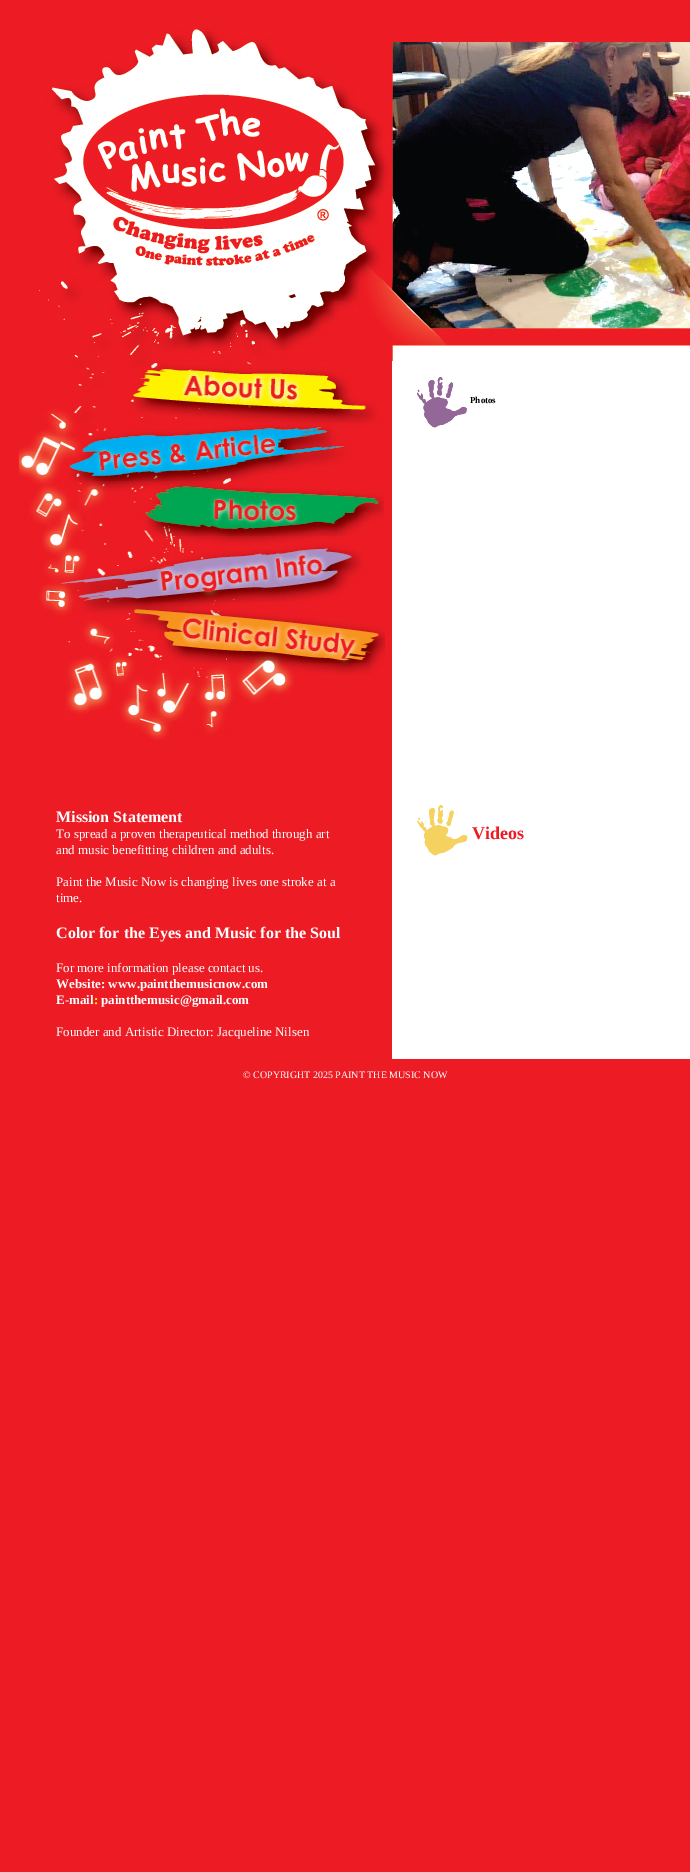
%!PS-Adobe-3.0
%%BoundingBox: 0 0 690 1872
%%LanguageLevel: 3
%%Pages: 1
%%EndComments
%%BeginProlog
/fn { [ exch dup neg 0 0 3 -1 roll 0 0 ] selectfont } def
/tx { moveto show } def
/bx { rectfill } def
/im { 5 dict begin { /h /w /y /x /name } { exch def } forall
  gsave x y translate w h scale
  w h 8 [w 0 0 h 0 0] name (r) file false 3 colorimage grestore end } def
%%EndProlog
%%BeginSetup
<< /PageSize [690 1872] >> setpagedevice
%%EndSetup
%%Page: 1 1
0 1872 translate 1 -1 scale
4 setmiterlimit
0.929 0.11 0.141 setrgbcolor
0 0 690 1872 bx
1 setgray
392 361 298 698 bx
(image0.raw) 39 8 651 353 im
(image1.raw) 417 377 50 51 im
/LiberationSerif-Bold 9 fn
0 setgray
(Photos) 470 403 tx
(image2.raw) 417 805 51 51 im
/LiberationSerif-Bold 18 fn
0.929 0.11 0.141 setrgbcolor
(Videos) 472 839 tx
(image3.raw) 18 361 367 379 im
/LiberationSerif-Bold 16 fn
1 setgray
(Mission Statement) 56 822 tx
/LiberationSerif-Regular 13 fn
(To spread a proven therapeutical method through art) 56 838 tx
(and music benefitting children and adults.) 56 854 tx
(Paint the Music Now is changing lives one stroke at a) 56 886 tx
(time.) 56 902 tx
/LiberationSerif-Bold 16 fn
(Color for the Eyes and Music for the Soul) 56 938 tx
/LiberationSerif-Regular 13 fn
(For more information please contact us.) 56 972 tx
/LiberationSerif-Bold 13 fn
(Website: www.paintthemusicnow.com) 56 988 tx
(E-mail) 56 1004 tx
1 1 0 setrgbcolor
(:) 94 1004 tx
1 setgray
(paintthemusic@gmail.com) 101 1004 tx
/LiberationSerif-Regular 13 fn
(Founder and Artistic Director: Jacqueline Nilsen) 56 1036 tx
/LiberationSerif-Regular 10 fn
(© COPYRIGHT 2025 PAINT THE MUSIC NOW) 243 1078 tx
showpage
%%EOF
